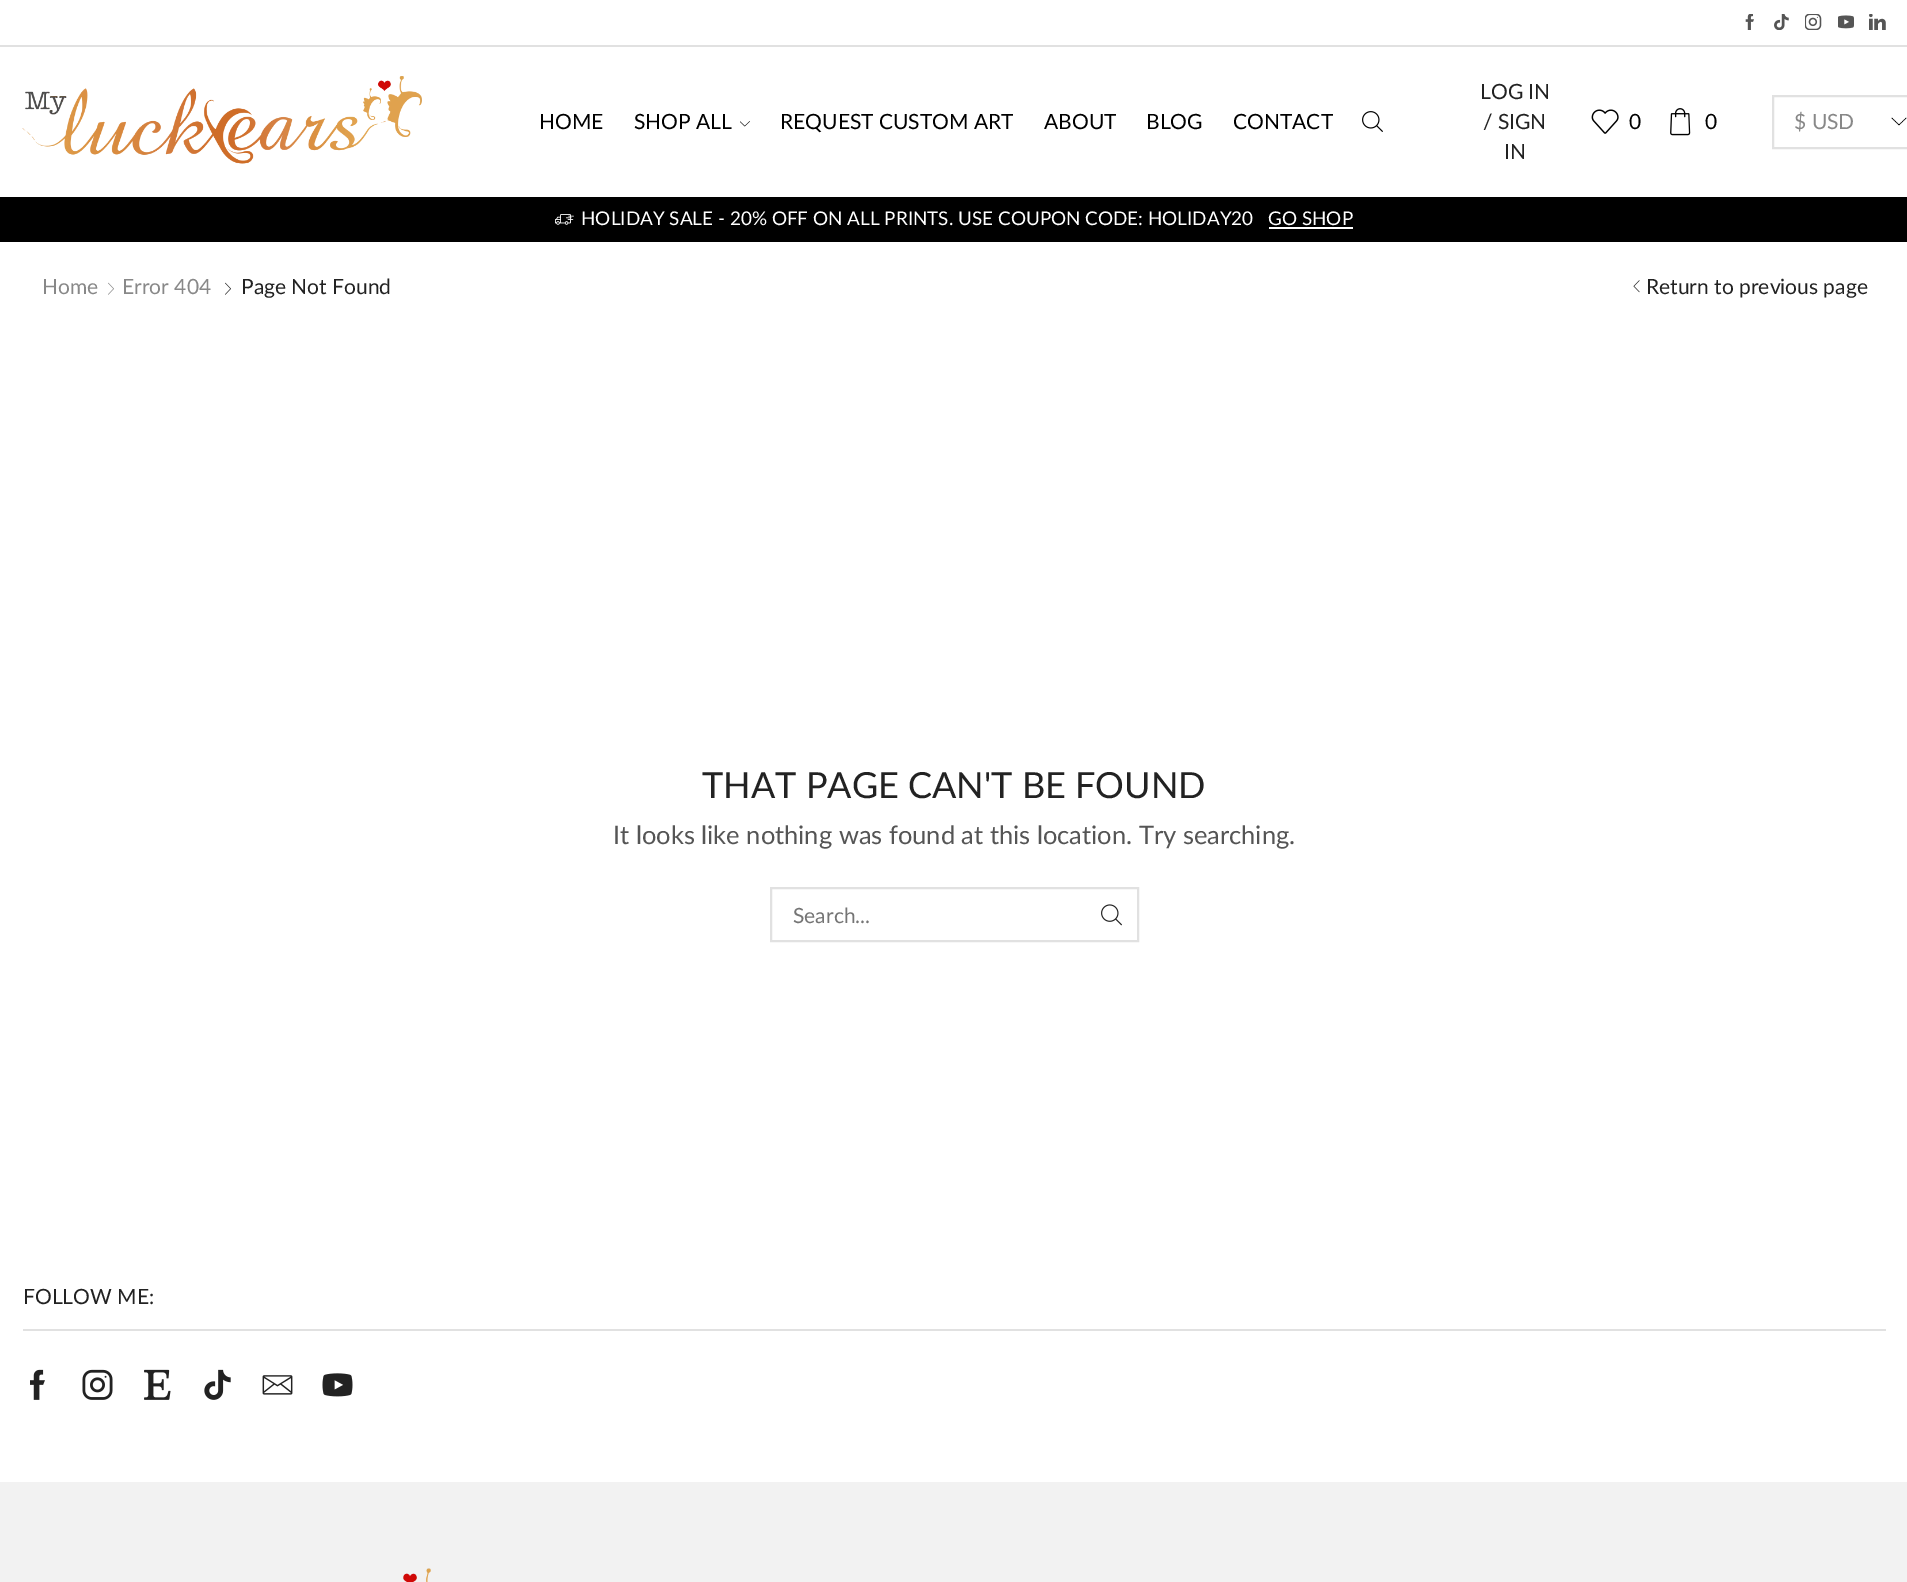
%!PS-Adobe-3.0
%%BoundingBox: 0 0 1907 1582
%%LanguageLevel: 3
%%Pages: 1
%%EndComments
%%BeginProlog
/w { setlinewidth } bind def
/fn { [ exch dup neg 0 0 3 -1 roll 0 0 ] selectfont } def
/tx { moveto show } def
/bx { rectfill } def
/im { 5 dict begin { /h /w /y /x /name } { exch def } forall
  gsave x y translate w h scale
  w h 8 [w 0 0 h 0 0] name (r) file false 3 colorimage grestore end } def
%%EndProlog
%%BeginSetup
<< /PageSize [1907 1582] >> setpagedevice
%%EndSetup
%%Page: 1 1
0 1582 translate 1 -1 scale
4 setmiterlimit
1 setgray
0 0 1907 1582 bx
0.882 setgray
0 45 1907 2 bx
(image0.raw) 1745 14 9 16 im
(image1.raw) 1774 14 15 16 im
(image2.raw) 1805 14 17 16 im
(image3.raw) 1838 15 16 14 im
(image4.raw) 1869 14 17 16 im
(image5.raw) 22 76 400 88 im
/Lato-Regular 21 fn
0 setgray
(HOME) 539 129 tx
(SHOP ALL) 634 129 tx
(image6.raw) 740 121 10 6 im
(REQUEST CUSTOM ART) 780 129 tx
(ABOUT) 1044 129 tx
(BLOG) 1146 129 tx
(CONTACT) 1233 129 tx
(image7.raw) 1362 111 21 21 im
0.133 setgray
(LOG IN) 1480 99 tx
(/ SIGN) 1483 129 tx
(IN) 1504 159 tx
(image8.raw) 1591 109 28 25 im
0 setgray
(0) 1629 129 tx
(image9.raw) 1670 108 21 28 im
(0) 1705 129 tx
(image10.raw) 1891 117 16 9 im
0.882 setgray
2 w
1773 96 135 52 rectstroke
0.533 setgray
($ USD) 1794 129 tx
0 setgray
0 197 1907 45 bx
(image11.raw) 555 214 19 11 im
/Lato-Regular 18.9 fn
1 setgray
(HOLIDAY SALE - 20% OFF ON ALL PRINTS. USE COUPON CODE: HOLIDAY20) 581 225 tx
(GO SHOP) 1268 225 tx
1269 227 84 2 bx
/Lato-Regular 21 fn
0.533 setgray
(Home) 42 294 tx
(image12.raw) 108 282 6 13 im
(Error 404) 122 294 tx
(image13.raw) 225 282 6 13 im
0.133 setgray
(Page Not Found) 241 294 tx
(image14.raw) 1633 280 7 13 im
(Return to previous page) 1646 294 tx
/Lato-Regular 36 fn
(THAT PAGE CAN'T BE FOUND) 702 798 tx
/Lato-Regular 25.5 fn
0.333 setgray
(It looks like nothing was found at this location. Try searching.) 613 844 tx
0.882 setgray
771 888 367 53 rectstroke
/Lato-Regular 21 fn
0.459 setgray
(Search...) 793 923 tx
(image15.raw) 1101 904 21 22 im
0.882 setgray
23 1329 1863 2 bx
0.133 setgray
(FOLLOW ME:) 23 1304 tx
(image16.raw) 30 1369 15 31 im
(image17.raw) 82 1369 31 31 im
(image18.raw) 144 1369 27 31 im
(image19.raw) 204 1369 27 31 im
(image20.raw) 262 1375 31 20 im
(image21.raw) 322 1373 31 24 im
0.949 setgray
0 1482 1907 100 bx
(image22.raw) 403 1568 28 14 im
showpage
%%EOF
